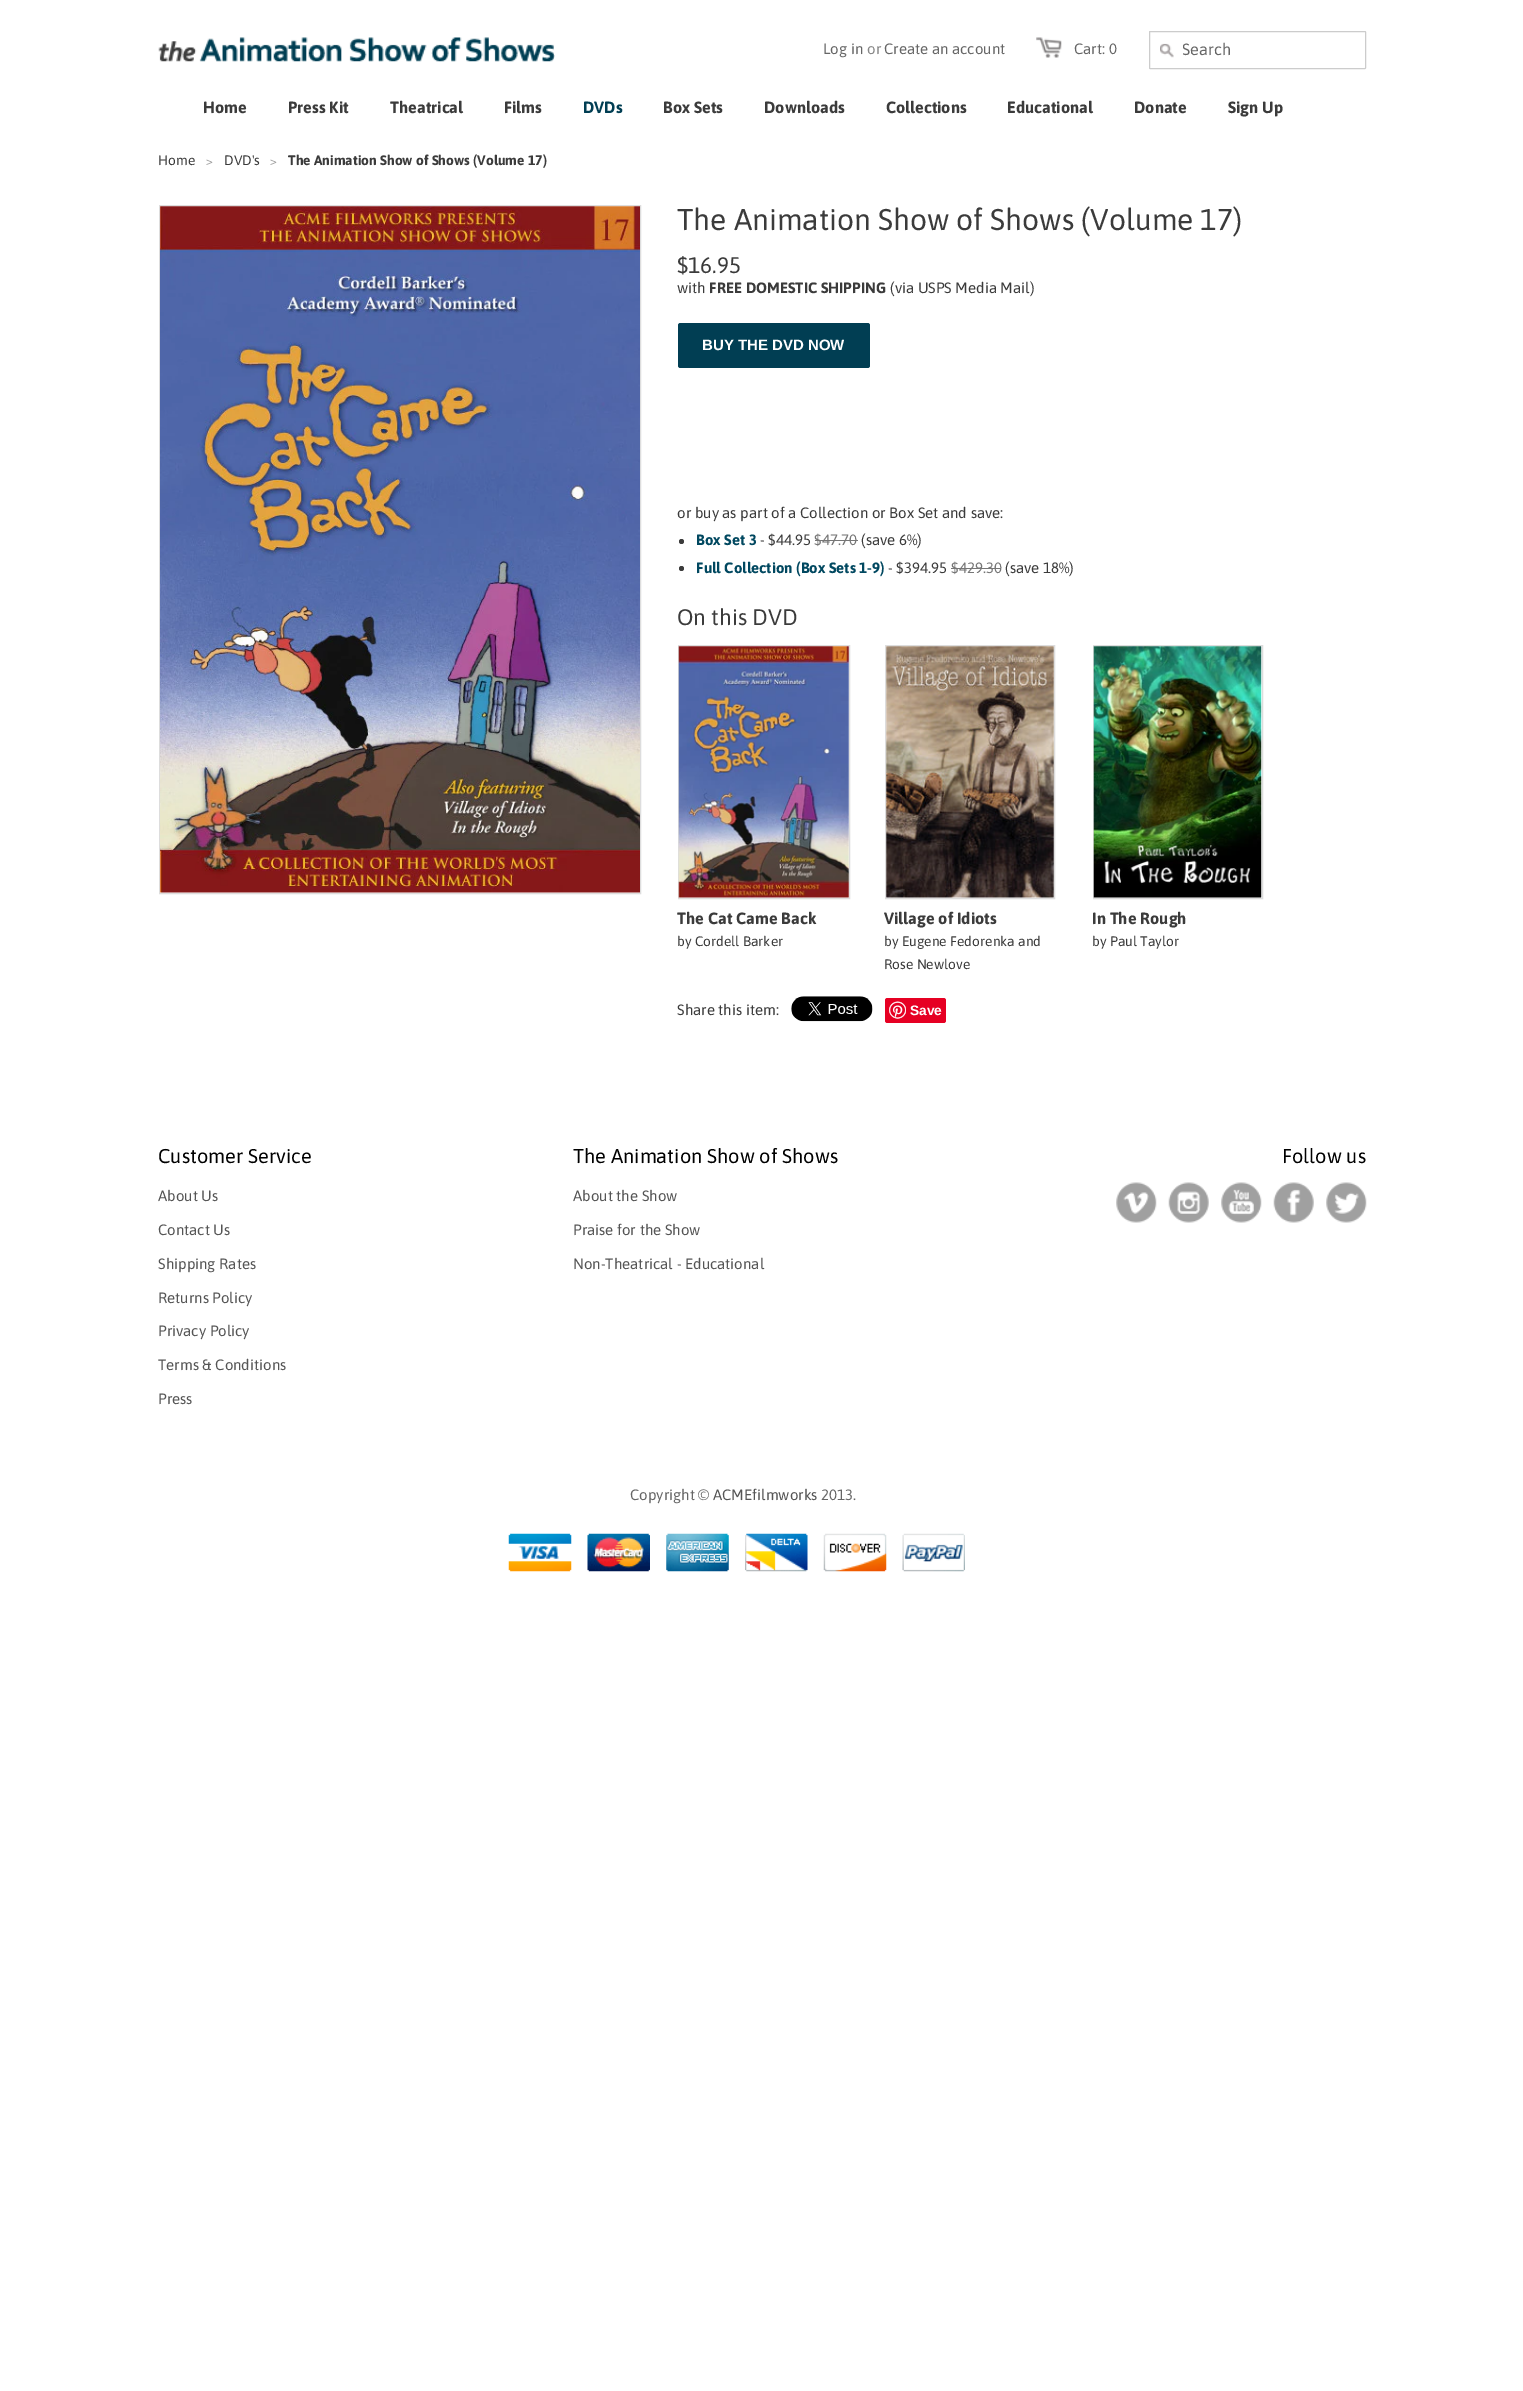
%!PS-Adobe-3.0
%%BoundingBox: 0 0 1523 2391
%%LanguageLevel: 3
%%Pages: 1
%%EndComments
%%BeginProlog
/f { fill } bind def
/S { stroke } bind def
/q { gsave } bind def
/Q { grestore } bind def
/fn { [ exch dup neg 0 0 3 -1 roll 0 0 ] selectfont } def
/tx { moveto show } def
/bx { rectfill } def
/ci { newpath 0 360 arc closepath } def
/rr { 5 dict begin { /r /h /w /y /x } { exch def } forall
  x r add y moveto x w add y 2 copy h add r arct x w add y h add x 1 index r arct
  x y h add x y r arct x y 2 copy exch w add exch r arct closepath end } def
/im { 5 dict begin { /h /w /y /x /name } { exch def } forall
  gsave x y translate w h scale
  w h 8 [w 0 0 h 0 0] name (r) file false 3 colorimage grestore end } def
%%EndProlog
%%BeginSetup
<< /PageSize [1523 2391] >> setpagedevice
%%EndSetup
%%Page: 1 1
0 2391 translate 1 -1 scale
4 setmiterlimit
1 setgray
0 0 1523 2391 bx
(image0.raw) 158 37 397 25 im
/Asap-Regular 15 fn
0.4 setgray
(Log in) 823 54 tx
0.533 setgray
(or) 867 54 tx
0.4 setgray
(Create an account) 884 54 tx
(image1.raw) 1036 37 26 21 im
(Cart: 0) 1074 54 tx
0.8 setgray
1149.5 31.5 216 37 0.5 rr S
(image2.raw) 1160 43 14 15 im
q
1183 40 170 19 rectclip
/Asap-Regular 16.25 fn
0.4 setgray
(Search) 1182 55 tx
Q
/Asap-Bold 16.25 fn
0.231 setgray
(Home) 203 113 tx
(Press Kit) 288 113 tx
(Theatrical) 390 113 tx
(Films) 504 113 tx
0.004 0.243 0.325 setrgbcolor
(DVDs) 583 113 tx
0.231 setgray
(Box Sets) 663 113 tx
(Downloads) 764 113 tx
(Collections) 886 113 tx
(Educational) 1007 113 tx
(Donate) 1134 113 tx
(Sign Up) 1228 113 tx
/Asap-Regular 13.75 fn
(Home) 158 165 tx
/Asap-Regular 12 fn
0.616 setgray
(>) 206 165 tx
/Asap-Regular 13.75 fn
0.231 setgray
(DVD's) 224 165 tx
/Asap-Regular 12 fn
0.616 setgray
(>) 270 165 tx
/Asap-Bold 13.75 fn
0.231 setgray
(The Animation Show of Shows \(Volume 17\)) 288 165 tx
0.867 setgray
159.5 205.5 481 688 rectstroke
(image3.raw) 160 206 480 687 im
/Asap-Regular 30 fn
0.231 setgray
(The Animation Show of Shows \(Volume 17\)) 677 230 tx
/Asap-Regular 22.5 fn
($16.95) 677 273 tx
/Asap-Regular 15 fn
(with) 677 293 tx
/Asap-Bold 15 fn
(FREE DOMESTIC SHIPPING) 709 293 tx
/Asap-Regular 15 fn
(\(via USPS Media Mail\)) 890 293 tx
0.004 0.243 0.325 setrgbcolor
678 323 192 45 2.5 rr f
/LiberationSans-Bold 15 fn
1 setgray
(BUY THE DVD NOW) 702 350 tx
/Asap-Regular 15 fn
0.231 setgray
(or buy as part of a Collection or Box Set and save:) 677 518 tx
681.5 541.5 2.5 ci f
/Asap-Bold 15 fn
0.004 0.282 0.376 setrgbcolor
(Box Set 3) 696 545 tx
/Asap-Regular 15 fn
0.231 setgray
(- $44.95) 760 545 tx
0.463 setgray
($47.70) 814 545 tx
815 540 43 1 bx
0.231 setgray
(\(save 6%\)) 861 545 tx
681.5 568.5 2.5 ci f
/Asap-Bold 15 fn
0.004 0.282 0.376 setrgbcolor
(Full Collection \(Box Sets 1-9\)) 696 573 tx
/Asap-Regular 15 fn
0.231 setgray
(- $394.95) 888 573 tx
0.463 setgray
($429.30) 951 573 tx
951 568 50 1 bx
0.231 setgray
(\(save 18%\)) 1005 573 tx
/Asap-Regular 22.5 fn
(On this DVD) 677 625 tx
0.867 setgray
678.5 645.5 171 253 rectstroke
(image4.raw) 678 646 171 252 im
/Asap-Bold 16.25 fn
0.231 setgray
(The Cat Came Back) 677 924 tx
/Asap-Regular 13.75 fn
(by Cordell Barker) 677 946 tx
0.867 setgray
885.5 645.5 169 253 rectstroke
(image5.raw) 886 646 168 252 im
/Asap-Bold 16.25 fn
0.231 setgray
(Village of Idiots) 884 924 tx
/Asap-Regular 13.75 fn
(by Eugene Fedorenka and) 884 946 tx
(Rose Newlove) 884 969 tx
0.867 setgray
1093.5 645.5 169 253 rectstroke
(image6.raw) 1093 646 169 252 im
/Asap-Bold 16.25 fn
0.231 setgray
(In The Rough) 1092 924 tx
/Asap-Regular 13.75 fn
(by Paul Taylor) 1092 946 tx
/Asap-Regular 15 fn
(Share this item:) 677 1015 tx
(image7.raw) 791 996 82 26 im
0.902 0 0.137 setrgbcolor
885 998 61 25 2.5 rr f
(image8.raw) 889 1001 17 18 im
/LiberationSans-Bold 13.75 fn
1 setgray
(Save) 910 1015 tx
/Asap-Regular 20 fn
0 setgray
(Customer Service) 158 1163 tx
/Asap-Regular 15 fn
0.333 setgray
(About Us) 158 1201 tx
(Contact Us) 158 1235 tx
(Shipping Rates) 158 1269 tx
(Returns Policy) 158 1303 tx
(Privacy Policy) 158 1336 tx
(Terms & Conditions) 158 1370 tx
(Press) 158 1404 tx
/Asap-Regular 20 fn
0 setgray
(The Animation Show of Shows) 573 1163 tx
/Asap-Regular 15 fn
0.333 setgray
(About the Show) 573 1201 tx
(Praise for the Show) 573 1235 tx
(Non-Theatrical - Educational) 573 1269 tx
/Asap-Regular 20 fn
0 setgray
(Follow us) 1282 1163 tx
(image9.raw) 1116 1182 41 41 im
(image10.raw) 1168 1182 41 41 im
(image11.raw) 1221 1182 41 41 im
(image12.raw) 1273 1182 41 41 im
(image13.raw) 1326 1182 41 41 im
/Asap-Regular 15 fn
0.4 setgray
(Copyright ©) 630 1500 tx
0.333 setgray
(ACMEfilmworks) 713 1500 tx
0.4 setgray
(2013.) 821 1500 tx
(image14.raw) 508 1533 64 39 im
(image15.raw) 587 1533 63 39 im
(image16.raw) 666 1533 63 39 im
(image17.raw) 745 1533 63 39 im
(image18.raw) 823 1533 64 39 im
(image19.raw) 902 1533 63 39 im
showpage
%%EOF
